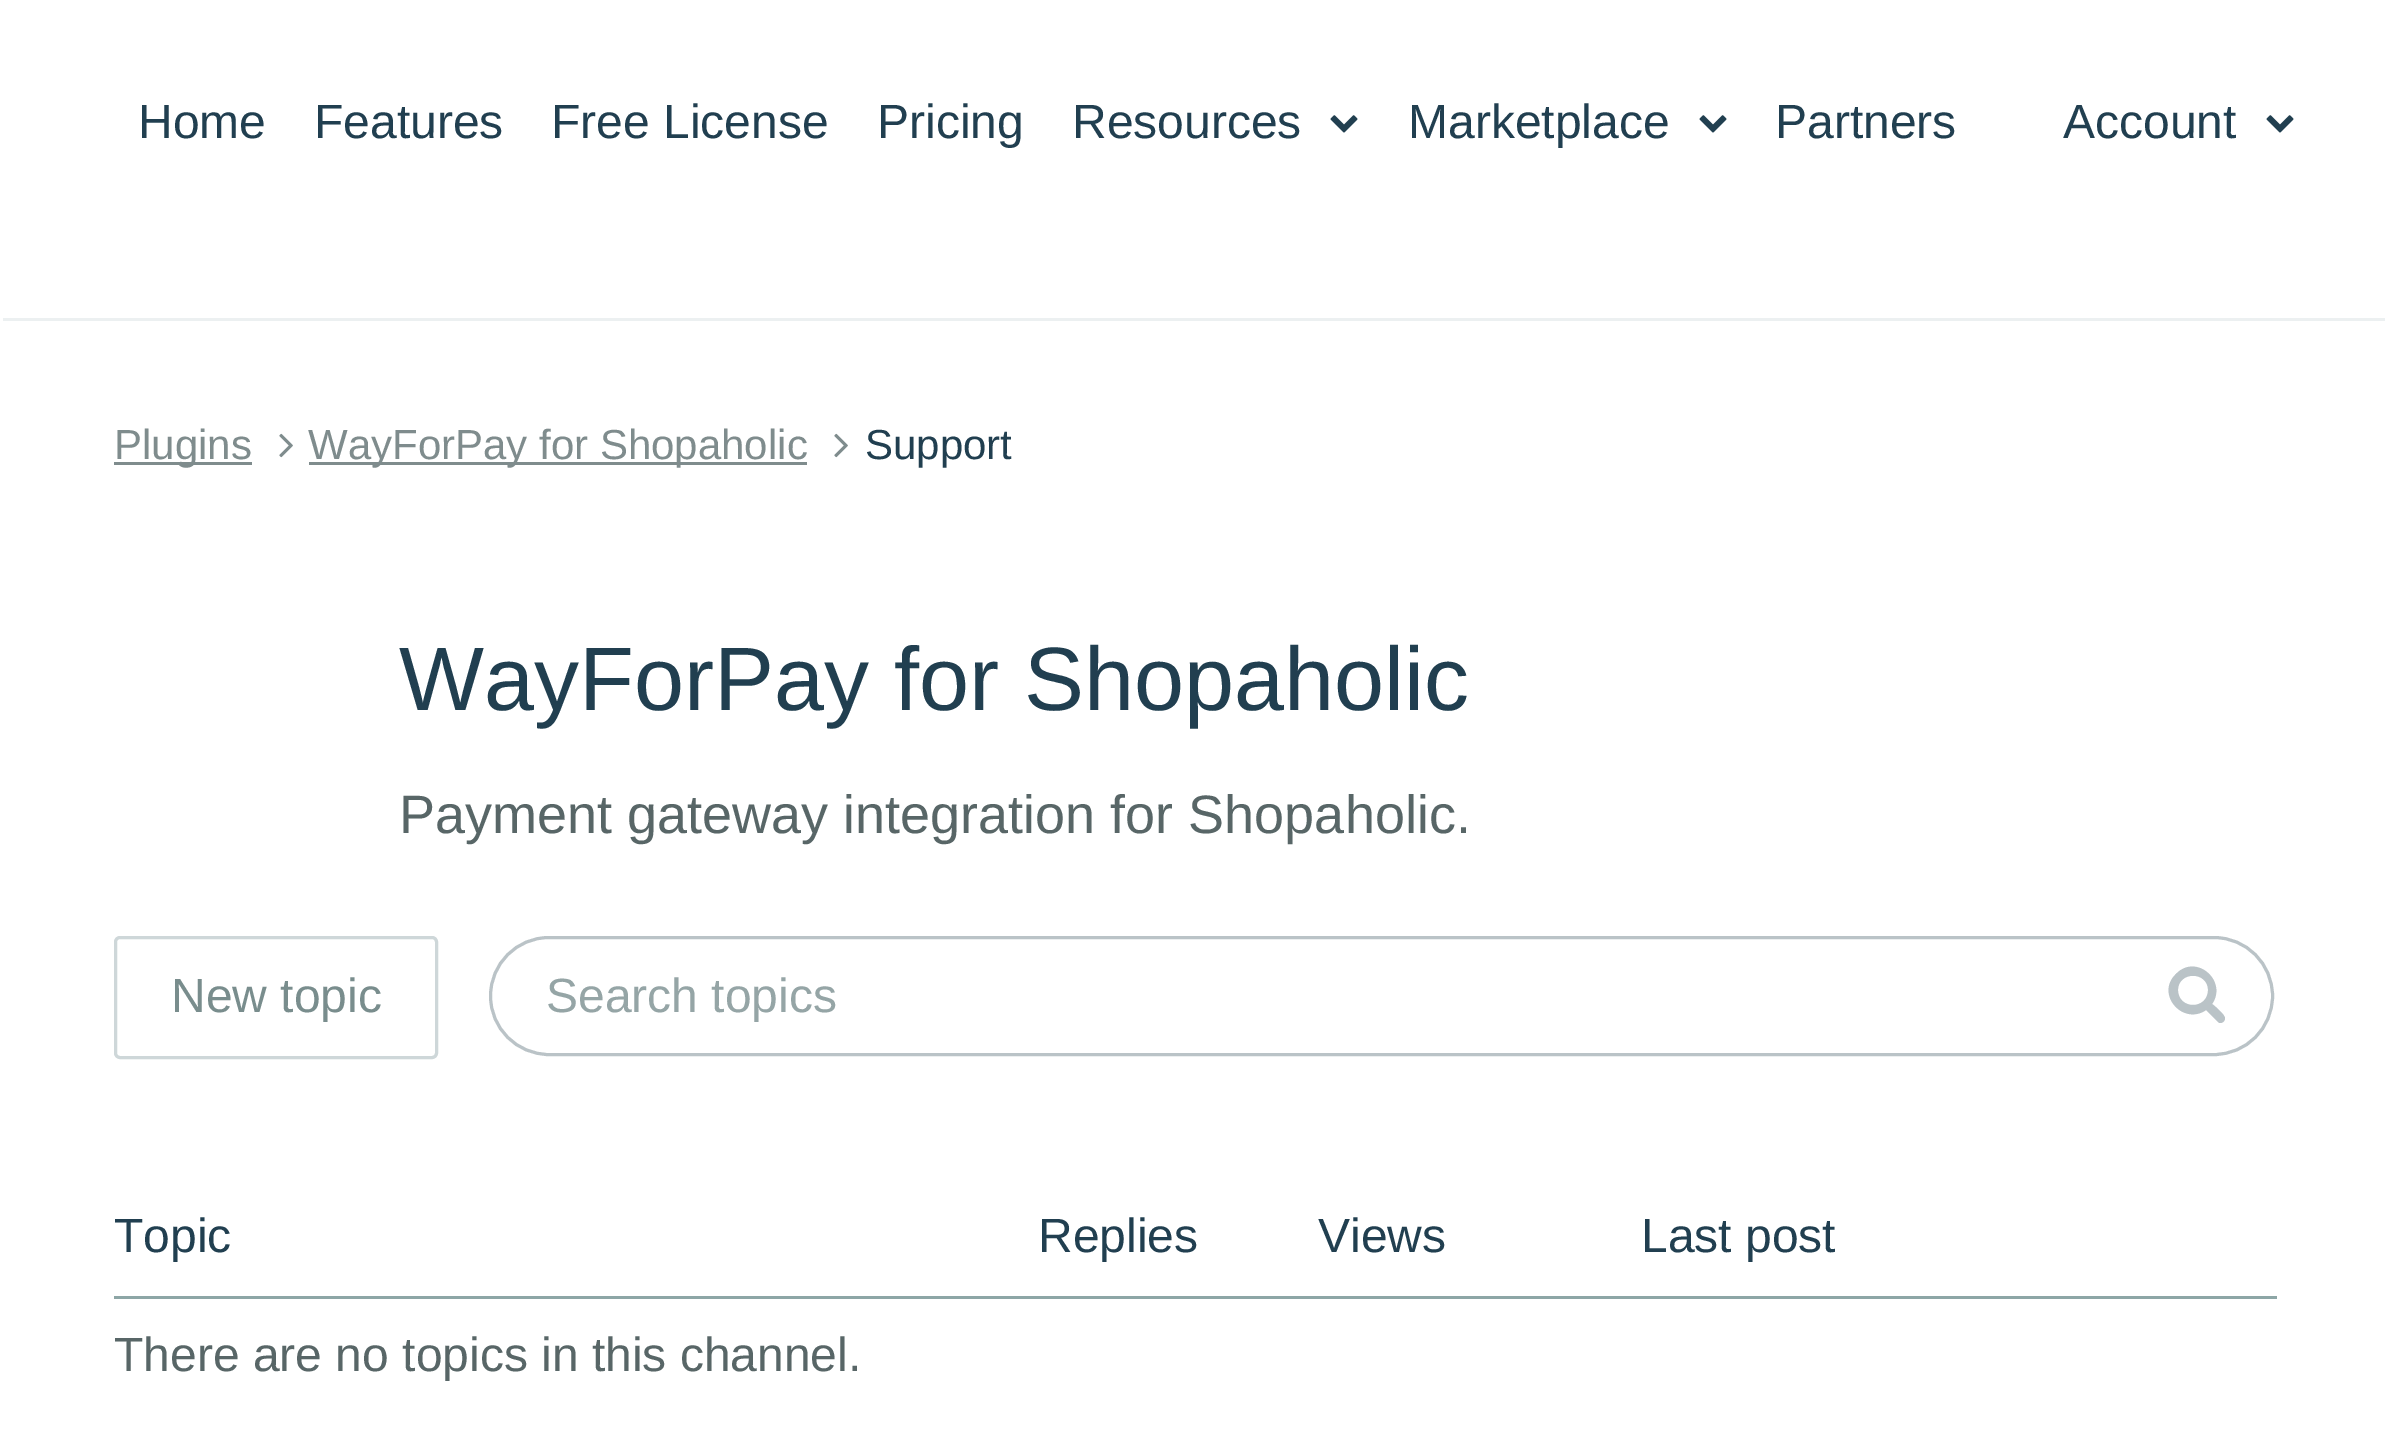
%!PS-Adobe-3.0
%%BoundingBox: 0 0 2386 1438
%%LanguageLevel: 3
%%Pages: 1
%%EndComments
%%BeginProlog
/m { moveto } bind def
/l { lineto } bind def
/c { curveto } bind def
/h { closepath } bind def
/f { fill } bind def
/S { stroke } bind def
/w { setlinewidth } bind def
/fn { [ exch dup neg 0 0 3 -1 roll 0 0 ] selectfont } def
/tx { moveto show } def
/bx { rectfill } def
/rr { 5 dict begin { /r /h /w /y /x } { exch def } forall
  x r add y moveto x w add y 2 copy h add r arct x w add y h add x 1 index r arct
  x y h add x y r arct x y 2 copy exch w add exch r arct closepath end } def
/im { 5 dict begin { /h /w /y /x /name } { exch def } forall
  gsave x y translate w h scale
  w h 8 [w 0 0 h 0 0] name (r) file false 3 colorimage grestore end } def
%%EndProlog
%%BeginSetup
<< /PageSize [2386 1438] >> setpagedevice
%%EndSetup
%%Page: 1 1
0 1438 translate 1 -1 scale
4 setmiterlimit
1 setgray
0 0 2386 1438 bx
0.925 0.941 0.945 setrgbcolor
3 318 2382 3 bx
/LiberationSans-Regular 48 fn
0.129 0.247 0.314 setrgbcolor
(Home) 138 138 tx
(Features) 314 138 tx
(Free License) 551 138 tx
(Pricing) 877 138 tx
(Resources) 1072 138 tx
(image0.raw) 1330 115 28 18 im
(Marketplace) 1408 138 tx
(image0.raw) 1699 115 28 18 im
(Partners) 1775 138 tx
(Account) 2063 138 tx
(image0.raw) 2266 115 28 18 im
0.498 0.549 0.553 setrgbcolor
114 462 138 3 bx
/LiberationSans-Regular 42 fn
(Plugins) 114 459 tx
(image1.raw) 279 433 14 25 im
309 462 498 3 bx
(WayForPay for Shopaholic) 308 459 tx
(image1.raw) 834 433 14 25 im
0.129 0.247 0.314 setrgbcolor
(Support) 865 459 tx
/LiberationSans-Regular 90 fn
(WayForPay for Shopaholic) 399 710 tx
/LiberationSans-Regular 54 fn
0.345 0.4 0.404 setrgbcolor
(Payment gateway integration for Shopaholic.) 399 833 tx
0.808 0.843 0.851 setrgbcolor
3 w
115.5 937.5 321 120 4.5 rr S
/LiberationSans-Regular 48 fn
0.475 0.553 0.553 setrgbcolor
(New topic) 171 1012 tx
0.729 0.765 0.78 setrgbcolor
490.5 937.5 1782 117 58.5 rr S
0.584 0.647 0.651 setrgbcolor
(Search topics) 546 1012 tx
0.729 0.765 0.78 setrgbcolor
2208 990 m 2208 1010 2178 1010 2178 990 c 2178 971 2208 971 2208 990 c h 2225 1018 m 2225 1015 2215 1006 2212 1004 c 2228 981 2196 953 2176 974 c 2155 994 2183 1026 2206 1010 c 2217 1021 l 2218 1022 2219 1023 2220 1023 c 2223 1023 2225 1021 2225 1018 c h f
0.129 0.247 0.314 setrgbcolor
(Topic) 114 1252 tx
(Replies) 1038 1252 tx
(Views) 1318 1252 tx
0.553 0.651 0.651 setrgbcolor
114 1296 2163 3 bx
0.129 0.247 0.314 setrgbcolor
(Last post) 1641 1252 tx
0.345 0.4 0.404 setrgbcolor
(There are no topics in this channel.) 114 1371 tx
showpage
%%EOF
